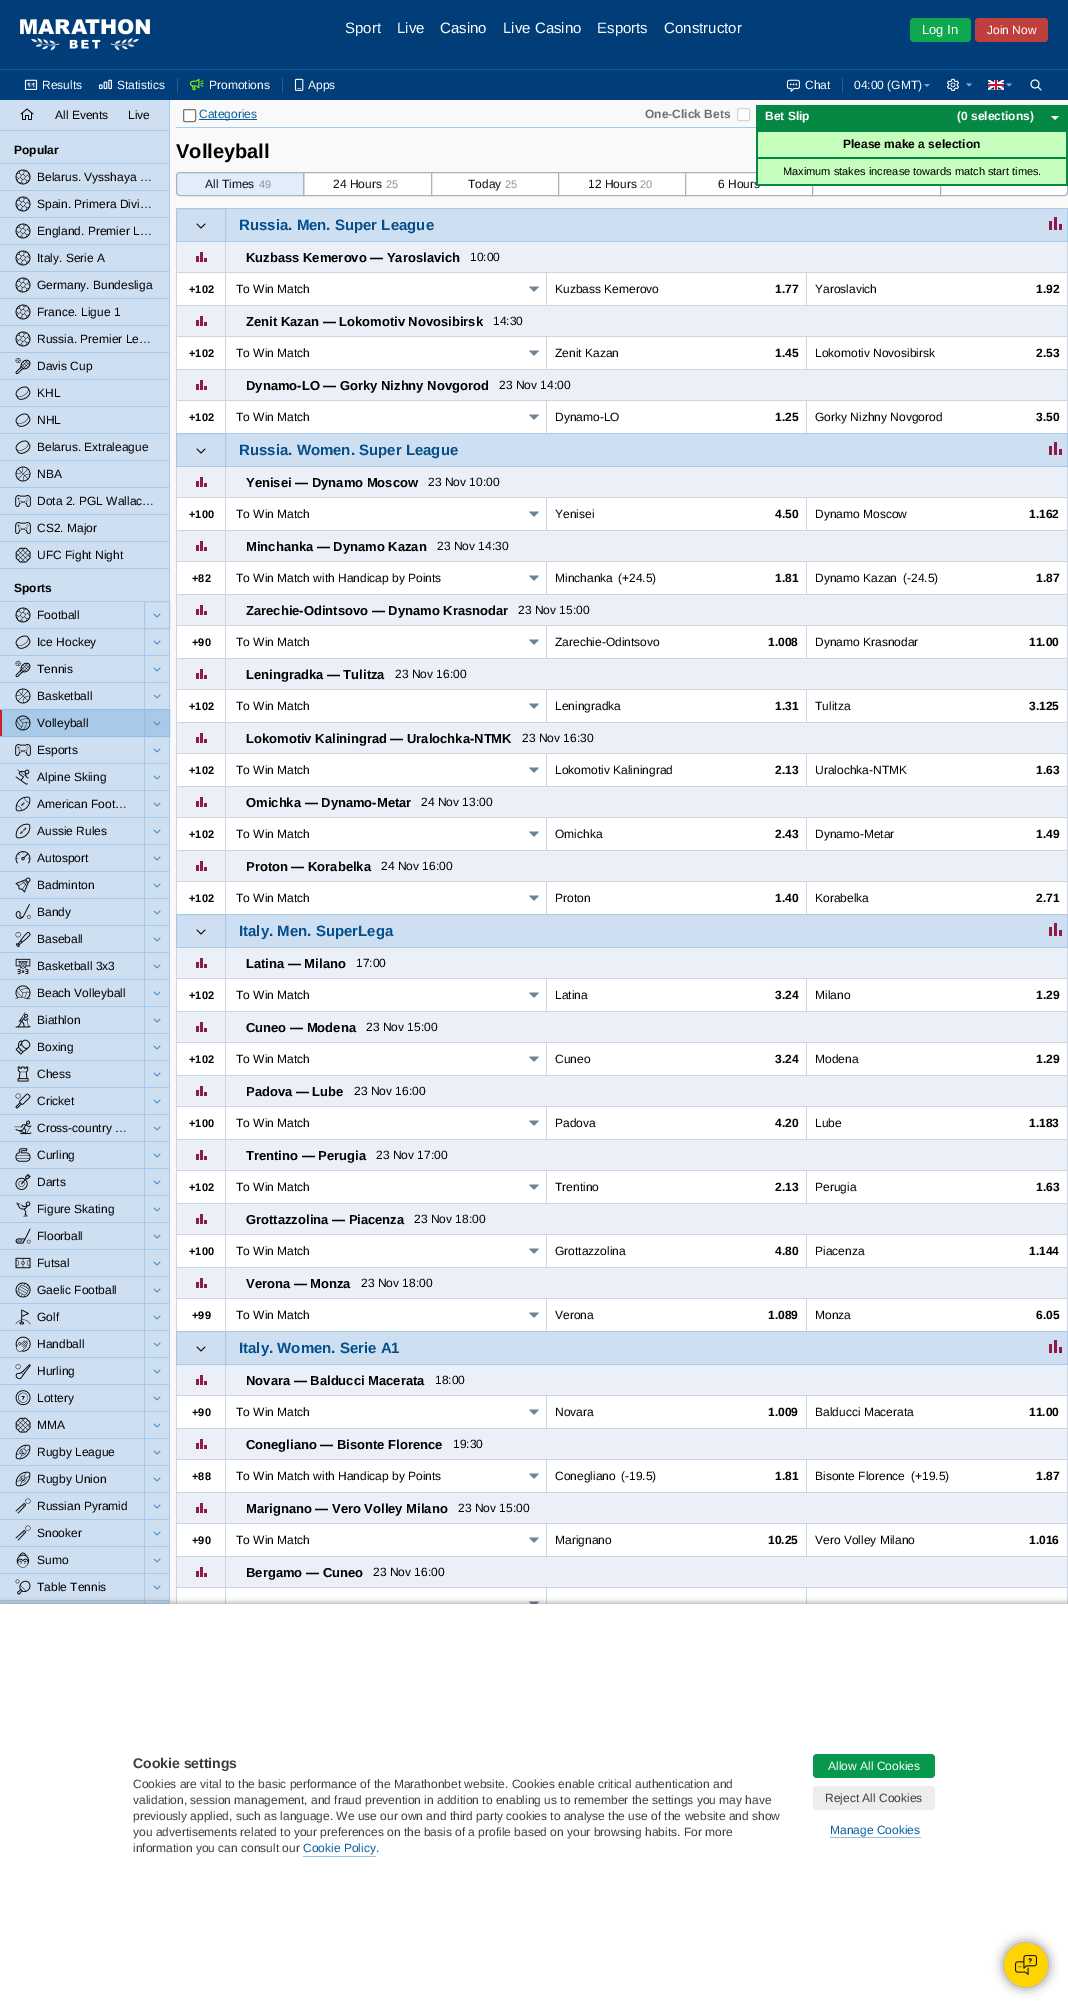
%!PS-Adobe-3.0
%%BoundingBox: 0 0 1068 2005
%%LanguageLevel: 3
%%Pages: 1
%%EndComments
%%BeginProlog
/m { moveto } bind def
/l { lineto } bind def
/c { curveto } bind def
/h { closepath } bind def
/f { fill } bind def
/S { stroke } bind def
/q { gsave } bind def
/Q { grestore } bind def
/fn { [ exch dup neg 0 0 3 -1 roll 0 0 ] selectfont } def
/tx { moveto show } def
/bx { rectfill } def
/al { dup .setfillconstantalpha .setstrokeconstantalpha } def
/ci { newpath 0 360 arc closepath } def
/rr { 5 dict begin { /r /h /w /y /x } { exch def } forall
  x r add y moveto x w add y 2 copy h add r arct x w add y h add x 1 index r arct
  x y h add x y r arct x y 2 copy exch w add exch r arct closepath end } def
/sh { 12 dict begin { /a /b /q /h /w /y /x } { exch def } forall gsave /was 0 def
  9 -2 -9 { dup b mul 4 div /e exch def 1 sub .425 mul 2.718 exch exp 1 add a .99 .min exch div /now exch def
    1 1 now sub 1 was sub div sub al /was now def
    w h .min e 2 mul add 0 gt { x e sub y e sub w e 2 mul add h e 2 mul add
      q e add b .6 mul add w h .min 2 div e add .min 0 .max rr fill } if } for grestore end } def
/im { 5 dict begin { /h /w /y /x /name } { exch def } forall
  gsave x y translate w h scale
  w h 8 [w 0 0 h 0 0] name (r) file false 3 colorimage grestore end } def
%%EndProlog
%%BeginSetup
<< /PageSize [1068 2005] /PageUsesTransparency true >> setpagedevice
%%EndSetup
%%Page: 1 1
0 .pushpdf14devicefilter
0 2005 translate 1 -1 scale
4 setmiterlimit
0.976 setgray
0 0 1068 2005 bx
0.004 0.239 0.475 setrgbcolor
0 0 1068 100 bx
(image0.raw) 20 19 130 32 im
/LiberationSans-Regular 15 fn
1 setgray
(Sport) 345 33 tx
(Live) 397 33 tx
(Casino) 440 33 tx
(Live Casino) 503 33 tx
(Esports) 597 33 tx
(Constructor) 664 33 tx
0.059 0.655 0.314 setrgbcolor
910 18 61 24 4 rr f
/LiberationSans-Regular 13 fn
1 setgray
(Log In) 922 34 tx
0.749 0.247 0.247 setrgbcolor
975 18 73 24 4 rr f
/LiberationSans-Regular 12 fn
1 setgray
(Join Now) 987 34 tx
0.024 0.365 0.627 setrgbcolor
0 69 1068 1 bx
(image1.raw) 24 79 14 11 im
1 setgray
(Results) 42 89 tx
(image2.raw) 98 79 14 11 im
(Statistics) 117 89 tx
0.165 0.361 0.557 setrgbcolor
177 78 1 15 bx
(image3.raw) 189 78 15 13 im
1 setgray
(Promotions) 209 89 tx
0.165 0.361 0.557 setrgbcolor
282 78 1 15 bx
(image4.raw) 294 78 10 13 im
1 setgray
(Apps) 308 89 tx
(image5.raw) 786 79 14 13 im
(Chat) 805 89 tx
0.165 0.361 0.557 setrgbcolor
842 78 1 15 bx
1 setgray
(04:00 \(GMT\)) 854 89 tx
0.463 0.675 0.859 setrgbcolor
924 84 m 930 84 l 927 87 l h f
(image6.raw) 947 78 12 13 im
966 83.5 m 972 83.5 l 969 86.5 l h f
1 setgray
988 80 16 10 bx
0.812 0.078 0.169 setrgbcolor
988 84 16 2 bx
995 80 2 10 bx
(image7.raw) 988 79 16 11 im
0.463 0.675 0.859 setrgbcolor
1006 83.5 m 1012 83.5 l 1009 86.5 l h f
(image8.raw) 1030 79 12 12 im
0.808 0.875 0.949 setrgbcolor
0 100 169 1504 bx
0.659 0.792 0.91 setrgbcolor
169 100 1 501 bx
0 130 170 1 bx
(image9.raw) 20 108 14 12 im
0 setgray
(All Events) 55 119 tx
(Live) 128 119 tx
/LiberationSans-Bold 12 fn
(Popular) 14 154 tx
0.659 0.792 0.91 setrgbcolor
0 163 169 1 bx
0 190 169 1 bx
(image10.raw) 15 169 16 16 im
/LiberationSans-Regular 12 fn
0 setgray
(Belarus. Vysshaya …) 37 181 tx
0.659 0.792 0.91 setrgbcolor
0 217 169 1 bx
(image10.raw) 15 196 16 16 im
0 setgray
(Spain. Primera Divi…) 37 208 tx
0.659 0.792 0.91 setrgbcolor
0 244 169 1 bx
(image10.raw) 15 223 16 16 im
0 setgray
(England. Premier L…) 37 235 tx
0.659 0.792 0.91 setrgbcolor
0 271 169 1 bx
(image10.raw) 15 250 16 16 im
0 setgray
(Italy. Serie A) 37 262 tx
0.659 0.792 0.91 setrgbcolor
0 298 169 1 bx
(image10.raw) 15 277 16 16 im
0 setgray
(Germany. Bundesliga) 37 289 tx
0.659 0.792 0.91 setrgbcolor
0 325 169 1 bx
(image10.raw) 15 304 16 16 im
0 setgray
(France. Ligue 1) 37 316 tx
0.659 0.792 0.91 setrgbcolor
0 352 169 1 bx
(image10.raw) 15 331 16 16 im
0 setgray
(Russia. Premier Le…) 37 343 tx
0.659 0.792 0.91 setrgbcolor
0 379 169 1 bx
(image11.raw) 15 357 16 18 im
0 setgray
(Davis Cup) 37 370 tx
0.659 0.792 0.91 setrgbcolor
0 406 169 1 bx
(image12.raw) 15 386 16 14 im
0 setgray
(KHL) 37 397 tx
0.659 0.792 0.91 setrgbcolor
0 433 169 1 bx
(image12.raw) 15 413 16 14 im
0 setgray
(NHL) 37 424 tx
0.659 0.792 0.91 setrgbcolor
0 460 169 1 bx
(image12.raw) 15 440 16 14 im
0 setgray
(Belarus. Extraleague) 37 451 tx
0.659 0.792 0.91 setrgbcolor
0 487 169 1 bx
(image13.raw) 15 466 16 16 im
0 setgray
(NBA) 37 478 tx
0.659 0.792 0.91 setrgbcolor
0 514 169 1 bx
(image14.raw) 15 495 16 12 im
0 setgray
(Dota 2. PGL Wallac…) 37 505 tx
0.659 0.792 0.91 setrgbcolor
0 541 169 1 bx
(image14.raw) 15 522 16 12 im
0 setgray
(CS2. Major) 37 532 tx
0.659 0.792 0.91 setrgbcolor
0 568 169 1 bx
(image15.raw) 15 547 16 16 im
0 setgray
(UFC Fight Night) 37 559 tx
/LiberationSans-Bold 12 fn
(Sports) 14 592 tx
0.659 0.792 0.91 setrgbcolor
0 601 144 1 bx
0 628 144 1 bx
(image10.raw) 15 607 16 16 im
/LiberationSans-Regular 12 fn
0 setgray
(Football) 37 619 tx
0.659 0.792 0.91 setrgbcolor
144.5 601.5 25 27 rectstroke
(image16.raw) 153 613 8 5 im
0 655 144 1 bx
(image12.raw) 15 635 16 14 im
0 setgray
(Ice Hockey) 37 646 tx
0.659 0.792 0.91 setrgbcolor
169 629 1 81 bx
144 655 26 1 bx
144 629 1 27 bx
(image16.raw) 153 640 8 5 im
0 682 144 1 bx
(image11.raw) 15 660 16 18 im
0 setgray
(Tennis) 37 673 tx
0.659 0.792 0.91 setrgbcolor
144 682 26 1 bx
144 656 1 54 bx
(image16.raw) 153 667 8 5 im
(image13.raw) 15 688 16 16 im
0 setgray
(Basketball) 37 700 tx
(image16.raw) 153 694 8 5 im
0.796 0.129 0.165 setrgbcolor
0 709 2 28 bx
0.58 0.741 0.882 setrgbcolor
0 709 144 1 bx
0 736 144 1 bx
0.659 0.792 0.91 setrgbcolor
145 710 24 26 bx
(image17.raw) 153 721 8 5 im
0.58 0.741 0.882 setrgbcolor
144.5 709.5 25 27 rectstroke
0.659 0.792 0.91 setrgbcolor
2 710 142 26 bx
(image18.raw) 15 715 16 16 im
0 setgray
(Volleyball) 37 727 tx
0.659 0.792 0.91 setrgbcolor
0 763 144 1 bx
(image14.raw) 15 744 16 12 im
0 setgray
(Esports) 37 754 tx
0.659 0.792 0.91 setrgbcolor
169 737 1 867 bx
144 763 26 1 bx
144 737 1 27 bx
(image16.raw) 153 748 8 5 im
0 790 144 1 bx
(image19.raw) 15 769 15 16 im
0 setgray
(Alpine Skiing) 37 781 tx
0.659 0.792 0.91 setrgbcolor
144 790 26 1 bx
144 764 1 27 bx
(image16.raw) 153 775 8 5 im
0 817 144 1 bx
(image20.raw) 15 796 16 16 im
0 setgray
(American Foot…) 37 808 tx
0.659 0.792 0.91 setrgbcolor
144 817 26 1 bx
144 791 1 27 bx
(image16.raw) 153 802 8 5 im
0 844 144 1 bx
(image21.raw) 15 823 16 16 im
0 setgray
(Aussie Rules) 37 835 tx
0.659 0.792 0.91 setrgbcolor
144 844 26 1 bx
144 818 1 27 bx
(image16.raw) 153 829 8 5 im
0 871 144 1 bx
(image22.raw) 15 851 16 13 im
0 setgray
(Autosport) 37 862 tx
0.659 0.792 0.91 setrgbcolor
144 871 26 1 bx
144 845 1 27 bx
(image16.raw) 153 856 8 5 im
0 898 144 1 bx
(image23.raw) 15 877 16 16 im
0 setgray
(Badminton) 37 889 tx
0.659 0.792 0.91 setrgbcolor
144 898 26 1 bx
144 872 1 27 bx
(image16.raw) 153 883 8 5 im
0 925 144 1 bx
(image24.raw) 15 904 16 15 im
0 setgray
(Bandy) 37 916 tx
0.659 0.792 0.91 setrgbcolor
144 925 26 1 bx
144 899 1 27 bx
(image16.raw) 153 910 8 5 im
0 952 144 1 bx
(image25.raw) 15 931 16 16 im
0 setgray
(Baseball) 37 943 tx
0.659 0.792 0.91 setrgbcolor
144 952 26 1 bx
144 926 1 27 bx
(image16.raw) 153 937 8 5 im
0 979 144 1 bx
(image26.raw) 15 958 16 17 im
0 setgray
(Basketball 3x3) 37 970 tx
0.659 0.792 0.91 setrgbcolor
144 979 26 1 bx
144 953 1 27 bx
(image16.raw) 153 964 8 5 im
0 1006 144 1 bx
(image27.raw) 15 985 16 15 im
0 setgray
(Beach Volleyball) 37 997 tx
0.659 0.792 0.91 setrgbcolor
144 1006 26 1 bx
144 980 1 27 bx
(image16.raw) 153 991 8 5 im
0 1033 144 1 bx
(image28.raw) 15 1012 16 16 im
0 setgray
(Biathlon) 37 1024 tx
0.659 0.792 0.91 setrgbcolor
144 1033 26 1 bx
144 1007 1 27 bx
(image16.raw) 153 1018 8 5 im
0 1060 144 1 bx
(image29.raw) 15 1039 16 16 im
0 setgray
(Boxing) 37 1051 tx
0.659 0.792 0.91 setrgbcolor
144 1060 26 1 bx
144 1034 1 27 bx
(image16.raw) 153 1045 8 5 im
0 1087 144 1 bx
(image30.raw) 17 1066 12 16 im
0 setgray
(Chess) 37 1078 tx
0.659 0.792 0.91 setrgbcolor
144 1087 26 1 bx
144 1061 1 27 bx
(image16.raw) 153 1072 8 5 im
0 1114 144 1 bx
(image31.raw) 15 1093 16 16 im
0 setgray
(Cricket) 37 1105 tx
0.659 0.792 0.91 setrgbcolor
144 1114 26 1 bx
144 1088 1 27 bx
(image16.raw) 153 1099 8 5 im
0 1141 144 1 bx
(image32.raw) 14 1120 18 15 im
0 setgray
(Cross-country …) 37 1132 tx
0.659 0.792 0.91 setrgbcolor
144 1141 26 1 bx
144 1115 1 27 bx
(image16.raw) 153 1126 8 5 im
0 1168 144 1 bx
(image33.raw) 15 1148 16 14 im
0 setgray
(Curling) 37 1159 tx
0.659 0.792 0.91 setrgbcolor
144 1168 26 1 bx
144 1142 1 27 bx
(image16.raw) 153 1153 8 5 im
0 1195 144 1 bx
(image34.raw) 15 1174 16 16 im
0 setgray
(Darts) 37 1186 tx
0.659 0.792 0.91 setrgbcolor
144 1195 26 1 bx
144 1169 1 27 bx
(image16.raw) 153 1180 8 5 im
0 1222 144 1 bx
(image35.raw) 16 1201 15 16 im
0 setgray
(Figure Skating) 37 1213 tx
0.659 0.792 0.91 setrgbcolor
144 1222 26 1 bx
144 1196 1 27 bx
(image16.raw) 153 1207 8 5 im
0 1249 144 1 bx
(image36.raw) 15 1228 16 16 im
0 setgray
(Floorball) 37 1240 tx
0.659 0.792 0.91 setrgbcolor
144 1249 26 1 bx
144 1223 1 27 bx
(image16.raw) 153 1234 8 5 im
0 1276 144 1 bx
(image37.raw) 15 1257 16 12 im
0 setgray
(Futsal) 37 1267 tx
0.659 0.792 0.91 setrgbcolor
144 1276 26 1 bx
144 1250 1 27 bx
(image16.raw) 153 1261 8 5 im
0 1303 144 1 bx
(image38.raw) 15 1282 16 16 im
0 setgray
(Gaelic Football) 37 1294 tx
0.659 0.792 0.91 setrgbcolor
144 1303 26 1 bx
144 1277 1 27 bx
(image16.raw) 153 1288 8 5 im
0 1330 144 1 bx
(image39.raw) 15 1309 16 16 im
0 setgray
(Golf) 37 1321 tx
0.659 0.792 0.91 setrgbcolor
144 1330 26 1 bx
144 1304 1 27 bx
(image16.raw) 153 1315 8 5 im
0 1357 144 1 bx
(image40.raw) 15 1336 16 16 im
0 setgray
(Handball) 37 1348 tx
0.659 0.792 0.91 setrgbcolor
144 1357 26 1 bx
144 1331 1 27 bx
(image16.raw) 153 1342 8 5 im
0 1384 144 1 bx
(image41.raw) 15 1364 16 15 im
0 setgray
(Hurling) 37 1375 tx
0.659 0.792 0.91 setrgbcolor
144 1384 26 1 bx
144 1358 1 27 bx
(image16.raw) 153 1369 8 5 im
0 1411 144 1 bx
(image42.raw) 15 1390 16 16 im
0 setgray
(Lottery) 37 1402 tx
0.659 0.792 0.91 setrgbcolor
144 1411 26 1 bx
144 1385 1 27 bx
(image16.raw) 153 1396 8 5 im
0 1438 144 1 bx
(image15.raw) 15 1417 16 16 im
0 setgray
(MMA) 37 1429 tx
0.659 0.792 0.91 setrgbcolor
144 1438 26 1 bx
144 1412 1 27 bx
(image16.raw) 153 1423 8 5 im
0 1465 144 1 bx
(image43.raw) 15 1444 16 16 im
0 setgray
(Rugby League) 37 1456 tx
0.659 0.792 0.91 setrgbcolor
144 1465 26 1 bx
144 1439 1 27 bx
(image16.raw) 153 1450 8 5 im
0 1492 144 1 bx
(image44.raw) 15 1471 16 16 im
0 setgray
(Rugby Union) 37 1483 tx
0.659 0.792 0.91 setrgbcolor
144 1492 26 1 bx
144 1466 1 27 bx
(image16.raw) 153 1477 8 5 im
0 1519 144 1 bx
(image45.raw) 15 1498 16 16 im
0 setgray
(Russian Pyramid) 37 1510 tx
0.659 0.792 0.91 setrgbcolor
144 1519 26 1 bx
144 1493 1 27 bx
(image16.raw) 153 1504 8 5 im
0 1546 144 1 bx
(image45.raw) 15 1525 16 16 im
0 setgray
(Snooker) 37 1537 tx
0.659 0.792 0.91 setrgbcolor
144 1546 26 1 bx
144 1520 1 27 bx
(image16.raw) 153 1531 8 5 im
0 1573 144 1 bx
(image46.raw) 16 1552 14 16 im
0 setgray
(Sumo) 37 1564 tx
0.659 0.792 0.91 setrgbcolor
144 1573 26 1 bx
144 1547 1 27 bx
(image16.raw) 153 1558 8 5 im
0 1600 144 1 bx
(image47.raw) 15 1579 16 16 im
0 setgray
(Table Tennis) 37 1591 tx
0.659 0.792 0.91 setrgbcolor
144 1600 26 1 bx
144 1574 1 30 bx
(image16.raw) 153 1585 8 5 im
1 setgray
183.5 109.5 12 12 1.5 rr q f Q
0.463 setgray
S
0.024 0.365 0.627 setrgbcolor
199 119 58 1 bx
(Categories) 199 118 tx
/LiberationSans-Bold 12 fn
0.439 setgray
(One-Click Bets) 645 118 tx
1 setgray
737.5 108.5 12 12 1.5 rr q f Q
0.839 setgray
S
0.659 0.792 0.91 setrgbcolor
176 127 580 1 bx
/LiberationSans-Bold 20 fn
0 setgray
(Volleyball) 176 158 tx
1 setgray
303.5 172.5 m 431.5 172.5 l 431.5 195.5 l 303.5 195.5 l h q f Q
0.659 0.698 0.753 setrgbcolor
S
0.882 0.929 0.98 setrgbcolor
180 172.5 m 303.5 172.5 l 303.5 195.5 l 180 195.5 l 178 195.5 176.5 194 176.5 192 c 176.5 176 l 176.5 174 178 172.5 180 172.5 c h q f Q
0.659 0.698 0.753 setrgbcolor
S
/LiberationSans-Regular 12 fn
0.059 0.063 0.071 setrgbcolor
(All Times) 205 188 tx
/LiberationSans-Regular 11 fn
0.569 setgray
(49) 259 188 tx
/LiberationSans-Regular 12 fn
0.059 0.063 0.071 setrgbcolor
(24 Hours) 333 188 tx
/LiberationSans-Regular 11 fn
0.569 setgray
(25) 386 188 tx
1 setgray
431.5 172.5 m 558.5 172.5 l 558.5 195.5 l 431.5 195.5 l h q f Q
0.659 0.698 0.753 setrgbcolor
S
/LiberationSans-Regular 12 fn
0.059 0.063 0.071 setrgbcolor
(Today) 468 188 tx
/LiberationSans-Regular 11 fn
0.569 setgray
(25) 505 188 tx
1 setgray
558.5 172.5 m 685.5 172.5 l 685.5 195.5 l 558.5 195.5 l h q f Q
0.659 0.698 0.753 setrgbcolor
S
/LiberationSans-Regular 12 fn
0.059 0.063 0.071 setrgbcolor
(12 Hours) 588 188 tx
/LiberationSans-Regular 11 fn
0.569 setgray
(20) 640 188 tx
1 setgray
685.5 172.5 m 812.5 172.5 l 812.5 195.5 l 685.5 195.5 l h q f Q
0.659 0.698 0.753 setrgbcolor
S
/LiberationSans-Regular 12 fn
0.059 0.063 0.071 setrgbcolor
(6 Hours) 718 188 tx
1 setgray
813 186 127 9 bx
0.659 0.698 0.753 setrgbcolor
812.5 172.5 128 23 rectstroke
1 setgray
940.5 172.5 m 1064 172.5 l 1066 172.5 1067.5 174 1067.5 176 c 1067.5 192 l 1067.5 194 1066 195.5 1064 195.5 c 940.5 195.5 l h q f Q
0.659 0.698 0.753 setrgbcolor
S
0.808 0.875 0.949 setrgbcolor
177 209 890 32 bx
0.659 0.792 0.91 setrgbcolor
176.5 208.5 49 33 rectstroke
(image48.raw) 196 223 10 6 im
226 208 842 1 bx
1067 208 1 34 bx
226 241 842 1 bx
/LiberationSans-Bold 15 fn
0.016 0.306 0.545 setrgbcolor
(Russia. Men. Super League) 239 230 tx
(image49.raw) 1049 217 13 13 im
1 setgray
177 273 890 160 bx
0.922 0.937 0.969 setrgbcolor
177 242 48 30 bx
0.804 0.835 0.882 setrgbcolor
225 242 1 30 bx
176 242 1 30 bx
(image50.raw) 196 252 11 10 im
0.922 0.937 0.969 setrgbcolor
226 242 841 30 bx
0.804 0.835 0.882 setrgbcolor
1067 242 1 30 bx
/LiberationSans-Bold 13 fn
0 setgray
(Kuzbass Kemerovo — Yaroslavich) 246 262 tx
/LiberationSans-Regular 12 fn
(10:00) 470 261 tx
0.804 0.835 0.882 setrgbcolor
176 272 892 1 bx
225 272 1 33 bx
176 272 1 33 bx
/LiberationSans-Bold 11 fn
0 setgray
(+102) 189 293 tx
(image51.raw) 529 286 10 6 im
/LiberationSans-Regular 12 fn
(To Win Match) 236 293 tx
0.804 0.835 0.882 setrgbcolor
546 273 1 33 bx
0 setgray
(Kuzbass Kemerovo) 555 293 tx
/LiberationSans-Bold 12 fn
(1.77) 775 293 tx
0.804 0.835 0.882 setrgbcolor
1067 273 1 33 bx
806 273 1 33 bx
/LiberationSans-Regular 12 fn
0 setgray
(Yaroslavich) 815 293 tx
/LiberationSans-Bold 12 fn
(1.92) 1036 293 tx
0.922 0.937 0.969 setrgbcolor
177 306 48 30 bx
0.804 0.835 0.882 setrgbcolor
176 305 892 1 bx
225 305 1 31 bx
176 305 1 31 bx
(image50.raw) 196 316 11 10 im
0.922 0.937 0.969 setrgbcolor
226 306 841 30 bx
0.804 0.835 0.882 setrgbcolor
1067 305 1 31 bx
/LiberationSans-Bold 13 fn
0 setgray
(Zenit Kazan — Lokomotiv Novosibirsk) 246 326 tx
/LiberationSans-Regular 12 fn
(14:30) 493 325 tx
0.804 0.835 0.882 setrgbcolor
176 336 892 1 bx
225 336 1 33 bx
176 336 1 33 bx
/LiberationSans-Bold 11 fn
0 setgray
(+102) 189 357 tx
(image51.raw) 529 350 10 6 im
/LiberationSans-Regular 12 fn
(To Win Match) 236 357 tx
0.804 0.835 0.882 setrgbcolor
546 337 1 33 bx
0 setgray
(Zenit Kazan) 555 357 tx
/LiberationSans-Bold 12 fn
(1.45) 775 357 tx
0.804 0.835 0.882 setrgbcolor
1067 337 1 33 bx
806 337 1 33 bx
/LiberationSans-Regular 12 fn
0 setgray
(Lokomotiv Novosibirsk) 815 357 tx
/LiberationSans-Bold 12 fn
(2.53) 1036 357 tx
0.922 0.937 0.969 setrgbcolor
177 370 48 30 bx
0.804 0.835 0.882 setrgbcolor
176 369 892 1 bx
225 369 1 31 bx
176 369 1 31 bx
(image50.raw) 196 380 11 10 im
0.922 0.937 0.969 setrgbcolor
226 370 841 30 bx
0.804 0.835 0.882 setrgbcolor
1067 369 1 31 bx
/LiberationSans-Bold 13 fn
0 setgray
(Dynamo-LO — Gorky Nizhny Novgorod) 246 390 tx
/LiberationSans-Regular 12 fn
(23 Nov 14:00) 499 389 tx
0.804 0.835 0.882 setrgbcolor
176 400 892 1 bx
225 400 1 33 bx
176 400 1 33 bx
/LiberationSans-Bold 11 fn
0 setgray
(+102) 189 421 tx
(image51.raw) 529 414 10 6 im
/LiberationSans-Regular 12 fn
(To Win Match) 236 421 tx
0.804 0.835 0.882 setrgbcolor
546 401 1 33 bx
0 setgray
(Dynamo-LO) 555 421 tx
/LiberationSans-Bold 12 fn
(1.25) 775 421 tx
0.804 0.835 0.882 setrgbcolor
1067 401 1 33 bx
806 401 1 33 bx
/LiberationSans-Regular 12 fn
0 setgray
(Gorky Nizhny Novgorod) 815 421 tx
/LiberationSans-Bold 12 fn
(3.50) 1036 421 tx
0.808 0.875 0.949 setrgbcolor
177 434 890 32 bx
0.659 0.792 0.91 setrgbcolor
176.5 433.5 49 33 rectstroke
(image48.raw) 196 448 10 6 im
226 433 842 1 bx
1067 433 1 34 bx
226 466 842 1 bx
/LiberationSans-Bold 15 fn
0.016 0.306 0.545 setrgbcolor
(Russia. Women. Super League) 239 455 tx
(image49.raw) 1049 442 13 13 im
1 setgray
177 498 890 416 bx
0.922 0.937 0.969 setrgbcolor
177 467 48 30 bx
0.804 0.835 0.882 setrgbcolor
225 467 1 30 bx
176 467 1 30 bx
(image50.raw) 196 477 11 10 im
0.922 0.937 0.969 setrgbcolor
226 467 841 30 bx
0.804 0.835 0.882 setrgbcolor
1067 467 1 30 bx
/LiberationSans-Bold 13 fn
0 setgray
(Yenisei — Dynamo Moscow) 246 487 tx
/LiberationSans-Regular 12 fn
(23 Nov 10:00) 428 486 tx
0.804 0.835 0.882 setrgbcolor
176 497 892 1 bx
225 497 1 33 bx
176 497 1 33 bx
/LiberationSans-Bold 11 fn
0 setgray
(+100) 189 518 tx
(image51.raw) 529 511 10 6 im
/LiberationSans-Regular 12 fn
(To Win Match) 236 518 tx
0.804 0.835 0.882 setrgbcolor
546 498 1 33 bx
0 setgray
(Yenisei) 555 518 tx
/LiberationSans-Bold 12 fn
(4.50) 775 518 tx
0.804 0.835 0.882 setrgbcolor
1067 498 1 33 bx
806 498 1 33 bx
/LiberationSans-Regular 12 fn
0 setgray
(Dynamo Moscow) 815 518 tx
/LiberationSans-Bold 12 fn
(1.162) 1029 518 tx
0.922 0.937 0.969 setrgbcolor
177 531 48 30 bx
0.804 0.835 0.882 setrgbcolor
176 530 892 1 bx
225 530 1 31 bx
176 530 1 31 bx
(image50.raw) 196 541 11 10 im
0.922 0.937 0.969 setrgbcolor
226 531 841 30 bx
0.804 0.835 0.882 setrgbcolor
1067 530 1 31 bx
/LiberationSans-Bold 13 fn
0 setgray
(Minchanka — Dynamo Kazan) 246 551 tx
/LiberationSans-Regular 12 fn
(23 Nov 14:30) 437 550 tx
0.804 0.835 0.882 setrgbcolor
176 561 892 1 bx
225 561 1 33 bx
176 561 1 33 bx
/LiberationSans-Bold 11 fn
0 setgray
(+82) 192 582 tx
(image51.raw) 529 575 10 6 im
/LiberationSans-Regular 12 fn
(To Win Match with Handicap by Points) 236 582 tx
0.804 0.835 0.882 setrgbcolor
546 562 1 33 bx
0 setgray
(Minchanka) 555 582 tx
(\(+24.5\)) 618 582 tx
/LiberationSans-Bold 12 fn
(1.81) 775 582 tx
0.804 0.835 0.882 setrgbcolor
1067 562 1 33 bx
806 562 1 33 bx
/LiberationSans-Regular 12 fn
0 setgray
(Dynamo Kazan) 815 582 tx
(\(-24.5\)) 903 582 tx
/LiberationSans-Bold 12 fn
(1.87) 1036 582 tx
0.922 0.937 0.969 setrgbcolor
177 595 48 30 bx
0.804 0.835 0.882 setrgbcolor
176 594 892 1 bx
225 594 1 31 bx
176 594 1 31 bx
(image50.raw) 196 605 11 10 im
0.922 0.937 0.969 setrgbcolor
226 595 841 30 bx
0.804 0.835 0.882 setrgbcolor
1067 594 1 31 bx
/LiberationSans-Bold 13 fn
0 setgray
(Zarechie-Odintsovo — Dynamo Krasnodar) 246 615 tx
/LiberationSans-Regular 12 fn
(23 Nov 15:00) 518 614 tx
0.804 0.835 0.882 setrgbcolor
176 625 892 1 bx
225 625 1 33 bx
176 625 1 33 bx
/LiberationSans-Bold 11 fn
0 setgray
(+90) 192 646 tx
(image51.raw) 529 639 10 6 im
/LiberationSans-Regular 12 fn
(To Win Match) 236 646 tx
0.804 0.835 0.882 setrgbcolor
546 626 1 33 bx
0 setgray
(Zarechie-Odintsovo) 555 646 tx
/LiberationSans-Bold 12 fn
(1.008) 768 646 tx
0.804 0.835 0.882 setrgbcolor
1067 626 1 33 bx
806 626 1 33 bx
/LiberationSans-Regular 12 fn
0 setgray
(Dynamo Krasnodar) 815 646 tx
/LiberationSans-Bold 12 fn
(11.00) 1029 646 tx
0.922 0.937 0.969 setrgbcolor
177 659 48 30 bx
0.804 0.835 0.882 setrgbcolor
176 658 892 1 bx
225 658 1 31 bx
176 658 1 31 bx
(image50.raw) 196 669 11 10 im
0.922 0.937 0.969 setrgbcolor
226 659 841 30 bx
0.804 0.835 0.882 setrgbcolor
1067 658 1 31 bx
/LiberationSans-Bold 13 fn
0 setgray
(Leningradka — Tulitza) 246 679 tx
/LiberationSans-Regular 12 fn
(23 Nov 16:00) 395 678 tx
0.804 0.835 0.882 setrgbcolor
176 689 892 1 bx
225 689 1 33 bx
176 689 1 33 bx
/LiberationSans-Bold 11 fn
0 setgray
(+102) 189 710 tx
(image51.raw) 529 703 10 6 im
/LiberationSans-Regular 12 fn
(To Win Match) 236 710 tx
0.804 0.835 0.882 setrgbcolor
546 690 1 33 bx
0 setgray
(Leningradka) 555 710 tx
/LiberationSans-Bold 12 fn
(1.31) 775 710 tx
0.804 0.835 0.882 setrgbcolor
1067 690 1 33 bx
806 690 1 33 bx
/LiberationSans-Regular 12 fn
0 setgray
(Tulitza) 815 710 tx
/LiberationSans-Bold 12 fn
(3.125) 1029 710 tx
0.922 0.937 0.969 setrgbcolor
177 723 48 30 bx
0.804 0.835 0.882 setrgbcolor
176 722 892 1 bx
225 722 1 31 bx
176 722 1 31 bx
(image50.raw) 196 733 11 10 im
0.922 0.937 0.969 setrgbcolor
226 723 841 30 bx
0.804 0.835 0.882 setrgbcolor
1067 722 1 31 bx
/LiberationSans-Bold 13 fn
0 setgray
(Lokomotiv Kaliningrad — Uralochka-NTMK) 246 743 tx
/LiberationSans-Regular 12 fn
(23 Nov 16:30) 522 742 tx
0.804 0.835 0.882 setrgbcolor
176 753 892 1 bx
225 753 1 33 bx
176 753 1 33 bx
/LiberationSans-Bold 11 fn
0 setgray
(+102) 189 774 tx
(image51.raw) 529 767 10 6 im
/LiberationSans-Regular 12 fn
(To Win Match) 236 774 tx
0.804 0.835 0.882 setrgbcolor
546 754 1 33 bx
0 setgray
(Lokomotiv Kaliningrad) 555 774 tx
/LiberationSans-Bold 12 fn
(2.13) 775 774 tx
0.804 0.835 0.882 setrgbcolor
1067 754 1 33 bx
806 754 1 33 bx
/LiberationSans-Regular 12 fn
0 setgray
(Uralochka-NTMK) 815 774 tx
/LiberationSans-Bold 12 fn
(1.63) 1036 774 tx
0.922 0.937 0.969 setrgbcolor
177 787 48 30 bx
0.804 0.835 0.882 setrgbcolor
176 786 892 1 bx
225 786 1 31 bx
176 786 1 31 bx
(image50.raw) 196 797 11 10 im
0.922 0.937 0.969 setrgbcolor
226 787 841 30 bx
0.804 0.835 0.882 setrgbcolor
1067 786 1 31 bx
/LiberationSans-Bold 13 fn
0 setgray
(Omichka — Dynamo-Metar) 246 807 tx
/LiberationSans-Regular 12 fn
(24 Nov 13:00) 421 806 tx
0.804 0.835 0.882 setrgbcolor
176 817 892 1 bx
225 817 1 33 bx
176 817 1 33 bx
/LiberationSans-Bold 11 fn
0 setgray
(+102) 189 838 tx
(image51.raw) 529 831 10 6 im
/LiberationSans-Regular 12 fn
(To Win Match) 236 838 tx
0.804 0.835 0.882 setrgbcolor
546 818 1 33 bx
0 setgray
(Omichka) 555 838 tx
/LiberationSans-Bold 12 fn
(2.43) 775 838 tx
0.804 0.835 0.882 setrgbcolor
1067 818 1 33 bx
806 818 1 33 bx
/LiberationSans-Regular 12 fn
0 setgray
(Dynamo-Metar) 815 838 tx
/LiberationSans-Bold 12 fn
(1.49) 1036 838 tx
0.922 0.937 0.969 setrgbcolor
177 851 48 30 bx
0.804 0.835 0.882 setrgbcolor
176 850 892 1 bx
225 850 1 31 bx
176 850 1 31 bx
(image50.raw) 196 861 11 10 im
0.922 0.937 0.969 setrgbcolor
226 851 841 30 bx
0.804 0.835 0.882 setrgbcolor
1067 850 1 31 bx
/LiberationSans-Bold 13 fn
0 setgray
(Proton — Korabelka) 246 871 tx
/LiberationSans-Regular 12 fn
(24 Nov 16:00) 381 870 tx
0.804 0.835 0.882 setrgbcolor
176 881 892 1 bx
225 881 1 33 bx
176 881 1 33 bx
/LiberationSans-Bold 11 fn
0 setgray
(+102) 189 902 tx
(image51.raw) 529 895 10 6 im
/LiberationSans-Regular 12 fn
(To Win Match) 236 902 tx
0.804 0.835 0.882 setrgbcolor
546 882 1 33 bx
0 setgray
(Proton) 555 902 tx
/LiberationSans-Bold 12 fn
(1.40) 775 902 tx
0.804 0.835 0.882 setrgbcolor
1067 882 1 33 bx
806 882 1 33 bx
/LiberationSans-Regular 12 fn
0 setgray
(Korabelka) 815 902 tx
/LiberationSans-Bold 12 fn
(2.71) 1036 902 tx
0.808 0.875 0.949 setrgbcolor
177 915 890 32 bx
0.659 0.792 0.91 setrgbcolor
176.5 914.5 49 33 rectstroke
(image48.raw) 196 929 10 6 im
226 914 842 1 bx
1067 914 1 34 bx
226 947 842 1 bx
/LiberationSans-Bold 15 fn
0.016 0.306 0.545 setrgbcolor
(Italy. Men. SuperLega) 239 936 tx
(image49.raw) 1049 923 13 13 im
1 setgray
177 979 890 352 bx
0.922 0.937 0.969 setrgbcolor
177 948 48 30 bx
0.804 0.835 0.882 setrgbcolor
225 948 1 30 bx
176 948 1 30 bx
(image50.raw) 196 958 11 10 im
0.922 0.937 0.969 setrgbcolor
226 948 841 30 bx
0.804 0.835 0.882 setrgbcolor
1067 948 1 30 bx
/LiberationSans-Bold 13 fn
0 setgray
(Latina — Milano) 246 968 tx
/LiberationSans-Regular 12 fn
(17:00) 356 967 tx
0.804 0.835 0.882 setrgbcolor
176 978 892 1 bx
225 978 1 33 bx
176 978 1 33 bx
/LiberationSans-Bold 11 fn
0 setgray
(+102) 189 999 tx
(image51.raw) 529 992 10 6 im
/LiberationSans-Regular 12 fn
(To Win Match) 236 999 tx
0.804 0.835 0.882 setrgbcolor
546 979 1 33 bx
0 setgray
(Latina) 555 999 tx
/LiberationSans-Bold 12 fn
(3.24) 775 999 tx
0.804 0.835 0.882 setrgbcolor
1067 979 1 33 bx
806 979 1 33 bx
/LiberationSans-Regular 12 fn
0 setgray
(Milano) 815 999 tx
/LiberationSans-Bold 12 fn
(1.29) 1036 999 tx
0.922 0.937 0.969 setrgbcolor
177 1012 48 30 bx
0.804 0.835 0.882 setrgbcolor
176 1011 892 1 bx
225 1011 1 31 bx
176 1011 1 31 bx
(image50.raw) 196 1022 11 10 im
0.922 0.937 0.969 setrgbcolor
226 1012 841 30 bx
0.804 0.835 0.882 setrgbcolor
1067 1011 1 31 bx
/LiberationSans-Bold 13 fn
0 setgray
(Cuneo — Modena) 246 1032 tx
/LiberationSans-Regular 12 fn
(23 Nov 15:00) 366 1031 tx
0.804 0.835 0.882 setrgbcolor
176 1042 892 1 bx
225 1042 1 33 bx
176 1042 1 33 bx
/LiberationSans-Bold 11 fn
0 setgray
(+102) 189 1063 tx
(image51.raw) 529 1056 10 6 im
/LiberationSans-Regular 12 fn
(To Win Match) 236 1063 tx
0.804 0.835 0.882 setrgbcolor
546 1043 1 33 bx
0 setgray
(Cuneo) 555 1063 tx
/LiberationSans-Bold 12 fn
(3.24) 775 1063 tx
0.804 0.835 0.882 setrgbcolor
1067 1043 1 33 bx
806 1043 1 33 bx
/LiberationSans-Regular 12 fn
0 setgray
(Modena) 815 1063 tx
/LiberationSans-Bold 12 fn
(1.29) 1036 1063 tx
0.922 0.937 0.969 setrgbcolor
177 1076 48 30 bx
0.804 0.835 0.882 setrgbcolor
176 1075 892 1 bx
225 1075 1 31 bx
176 1075 1 31 bx
(image50.raw) 196 1086 11 10 im
0.922 0.937 0.969 setrgbcolor
226 1076 841 30 bx
0.804 0.835 0.882 setrgbcolor
1067 1075 1 31 bx
/LiberationSans-Bold 13 fn
0 setgray
(Padova — Lube) 246 1096 tx
/LiberationSans-Regular 12 fn
(23 Nov 16:00) 354 1095 tx
0.804 0.835 0.882 setrgbcolor
176 1106 892 1 bx
225 1106 1 33 bx
176 1106 1 33 bx
/LiberationSans-Bold 11 fn
0 setgray
(+100) 189 1127 tx
(image51.raw) 529 1120 10 6 im
/LiberationSans-Regular 12 fn
(To Win Match) 236 1127 tx
0.804 0.835 0.882 setrgbcolor
546 1107 1 33 bx
0 setgray
(Padova) 555 1127 tx
/LiberationSans-Bold 12 fn
(4.20) 775 1127 tx
0.804 0.835 0.882 setrgbcolor
1067 1107 1 33 bx
806 1107 1 33 bx
/LiberationSans-Regular 12 fn
0 setgray
(Lube) 815 1127 tx
/LiberationSans-Bold 12 fn
(1.183) 1029 1127 tx
0.922 0.937 0.969 setrgbcolor
177 1140 48 30 bx
0.804 0.835 0.882 setrgbcolor
176 1139 892 1 bx
225 1139 1 31 bx
176 1139 1 31 bx
(image50.raw) 196 1150 11 10 im
0.922 0.937 0.969 setrgbcolor
226 1140 841 30 bx
0.804 0.835 0.882 setrgbcolor
1067 1139 1 31 bx
/LiberationSans-Bold 13 fn
0 setgray
(Trentino — Perugia) 246 1160 tx
/LiberationSans-Regular 12 fn
(23 Nov 17:00) 376 1159 tx
0.804 0.835 0.882 setrgbcolor
176 1170 892 1 bx
225 1170 1 33 bx
176 1170 1 33 bx
/LiberationSans-Bold 11 fn
0 setgray
(+102) 189 1191 tx
(image51.raw) 529 1184 10 6 im
/LiberationSans-Regular 12 fn
(To Win Match) 236 1191 tx
0.804 0.835 0.882 setrgbcolor
546 1171 1 33 bx
0 setgray
(Trentino) 555 1191 tx
/LiberationSans-Bold 12 fn
(2.13) 775 1191 tx
0.804 0.835 0.882 setrgbcolor
1067 1171 1 33 bx
806 1171 1 33 bx
/LiberationSans-Regular 12 fn
0 setgray
(Perugia) 815 1191 tx
/LiberationSans-Bold 12 fn
(1.63) 1036 1191 tx
0.922 0.937 0.969 setrgbcolor
177 1204 48 30 bx
0.804 0.835 0.882 setrgbcolor
176 1203 892 1 bx
225 1203 1 31 bx
176 1203 1 31 bx
(image50.raw) 196 1214 11 10 im
0.922 0.937 0.969 setrgbcolor
226 1204 841 30 bx
0.804 0.835 0.882 setrgbcolor
1067 1203 1 31 bx
/LiberationSans-Bold 13 fn
0 setgray
(Grottazzolina — Piacenza) 246 1224 tx
/LiberationSans-Regular 12 fn
(23 Nov 18:00) 414 1223 tx
0.804 0.835 0.882 setrgbcolor
176 1234 892 1 bx
225 1234 1 33 bx
176 1234 1 33 bx
/LiberationSans-Bold 11 fn
0 setgray
(+100) 189 1255 tx
(image51.raw) 529 1248 10 6 im
/LiberationSans-Regular 12 fn
(To Win Match) 236 1255 tx
0.804 0.835 0.882 setrgbcolor
546 1235 1 33 bx
0 setgray
(Grottazzolina) 555 1255 tx
/LiberationSans-Bold 12 fn
(4.80) 775 1255 tx
0.804 0.835 0.882 setrgbcolor
1067 1235 1 33 bx
806 1235 1 33 bx
/LiberationSans-Regular 12 fn
0 setgray
(Piacenza) 815 1255 tx
/LiberationSans-Bold 12 fn
(1.144) 1029 1255 tx
0.922 0.937 0.969 setrgbcolor
177 1268 48 30 bx
0.804 0.835 0.882 setrgbcolor
176 1267 892 1 bx
225 1267 1 31 bx
176 1267 1 31 bx
(image50.raw) 196 1278 11 10 im
0.922 0.937 0.969 setrgbcolor
226 1268 841 30 bx
0.804 0.835 0.882 setrgbcolor
1067 1267 1 31 bx
/LiberationSans-Bold 13 fn
0 setgray
(Verona — Monza) 246 1288 tx
/LiberationSans-Regular 12 fn
(23 Nov 18:00) 361 1287 tx
0.804 0.835 0.882 setrgbcolor
176 1298 892 1 bx
225 1298 1 33 bx
176 1298 1 33 bx
/LiberationSans-Bold 11 fn
0 setgray
(+99) 192 1319 tx
(image51.raw) 529 1312 10 6 im
/LiberationSans-Regular 12 fn
(To Win Match) 236 1319 tx
0.804 0.835 0.882 setrgbcolor
546 1299 1 33 bx
0 setgray
(Verona) 555 1319 tx
/LiberationSans-Bold 12 fn
(1.089) 768 1319 tx
0.804 0.835 0.882 setrgbcolor
1067 1299 1 33 bx
806 1299 1 33 bx
/LiberationSans-Regular 12 fn
0 setgray
(Monza) 815 1319 tx
/LiberationSans-Bold 12 fn
(6.05) 1036 1319 tx
0.808 0.875 0.949 setrgbcolor
177 1332 890 32 bx
0.659 0.792 0.91 setrgbcolor
176.5 1331.5 49 33 rectstroke
(image48.raw) 196 1346 10 6 im
226 1331 842 1 bx
1067 1331 1 34 bx
226 1364 842 1 bx
/LiberationSans-Bold 15 fn
0.016 0.306 0.545 setrgbcolor
(Italy. Women. Serie A1) 239 1353 tx
(image49.raw) 1049 1340 13 13 im
1 setgray
177 1396 890 208 bx
0.922 0.937 0.969 setrgbcolor
177 1365 48 30 bx
0.804 0.835 0.882 setrgbcolor
225 1365 1 30 bx
176 1365 1 30 bx
(image50.raw) 196 1375 11 10 im
0.922 0.937 0.969 setrgbcolor
226 1365 841 30 bx
0.804 0.835 0.882 setrgbcolor
1067 1365 1 30 bx
/LiberationSans-Bold 13 fn
0 setgray
(Novara — Balducci Macerata) 246 1385 tx
/LiberationSans-Regular 12 fn
(18:00) 435 1384 tx
0.804 0.835 0.882 setrgbcolor
176 1395 892 1 bx
225 1395 1 33 bx
176 1395 1 33 bx
/LiberationSans-Bold 11 fn
0 setgray
(+90) 192 1416 tx
(image51.raw) 529 1409 10 6 im
/LiberationSans-Regular 12 fn
(To Win Match) 236 1416 tx
0.804 0.835 0.882 setrgbcolor
546 1396 1 33 bx
0 setgray
(Novara) 555 1416 tx
/LiberationSans-Bold 12 fn
(1.009) 768 1416 tx
0.804 0.835 0.882 setrgbcolor
1067 1396 1 33 bx
806 1396 1 33 bx
/LiberationSans-Regular 12 fn
0 setgray
(Balducci Macerata) 815 1416 tx
/LiberationSans-Bold 12 fn
(11.00) 1029 1416 tx
0.922 0.937 0.969 setrgbcolor
177 1429 48 30 bx
0.804 0.835 0.882 setrgbcolor
176 1428 892 1 bx
225 1428 1 31 bx
176 1428 1 31 bx
(image50.raw) 196 1439 11 10 im
0.922 0.937 0.969 setrgbcolor
226 1429 841 30 bx
0.804 0.835 0.882 setrgbcolor
1067 1428 1 31 bx
/LiberationSans-Bold 13 fn
0 setgray
(Conegliano — Bisonte Florence) 246 1449 tx
/LiberationSans-Regular 12 fn
(19:30) 453 1448 tx
0.804 0.835 0.882 setrgbcolor
176 1459 892 1 bx
225 1459 1 33 bx
176 1459 1 33 bx
/LiberationSans-Bold 11 fn
0 setgray
(+88) 192 1480 tx
(image51.raw) 529 1473 10 6 im
/LiberationSans-Regular 12 fn
(To Win Match with Handicap by Points) 236 1480 tx
0.804 0.835 0.882 setrgbcolor
546 1460 1 33 bx
0 setgray
(Conegliano) 555 1480 tx
(\(-19.5\)) 621 1480 tx
/LiberationSans-Bold 12 fn
(1.81) 775 1480 tx
0.804 0.835 0.882 setrgbcolor
1067 1460 1 33 bx
806 1460 1 33 bx
/LiberationSans-Regular 12 fn
0 setgray
(Bisonte Florence) 815 1480 tx
(\(+19.5\)) 911 1480 tx
/LiberationSans-Bold 12 fn
(1.87) 1036 1480 tx
0.922 0.937 0.969 setrgbcolor
177 1493 48 30 bx
0.804 0.835 0.882 setrgbcolor
176 1492 892 1 bx
225 1492 1 31 bx
176 1492 1 31 bx
(image50.raw) 196 1503 11 10 im
0.922 0.937 0.969 setrgbcolor
226 1493 841 30 bx
0.804 0.835 0.882 setrgbcolor
1067 1492 1 31 bx
/LiberationSans-Bold 13 fn
0 setgray
(Marignano — Vero Volley Milano) 246 1513 tx
/LiberationSans-Regular 12 fn
(23 Nov 15:00) 458 1512 tx
0.804 0.835 0.882 setrgbcolor
176 1523 892 1 bx
225 1523 1 33 bx
176 1523 1 33 bx
/LiberationSans-Bold 11 fn
0 setgray
(+90) 192 1544 tx
(image51.raw) 529 1537 10 6 im
/LiberationSans-Regular 12 fn
(To Win Match) 236 1544 tx
0.804 0.835 0.882 setrgbcolor
546 1524 1 33 bx
0 setgray
(Marignano) 555 1544 tx
/LiberationSans-Bold 12 fn
(10.25) 768 1544 tx
0.804 0.835 0.882 setrgbcolor
1067 1524 1 33 bx
806 1524 1 33 bx
/LiberationSans-Regular 12 fn
0 setgray
(Vero Volley Milano) 815 1544 tx
/LiberationSans-Bold 12 fn
(1.016) 1029 1544 tx
0.922 0.937 0.969 setrgbcolor
177 1557 48 30 bx
0.804 0.835 0.882 setrgbcolor
176 1556 892 1 bx
225 1556 1 31 bx
176 1556 1 31 bx
(image50.raw) 196 1567 11 10 im
0.922 0.937 0.969 setrgbcolor
226 1557 841 30 bx
0.804 0.835 0.882 setrgbcolor
1067 1556 1 31 bx
/LiberationSans-Bold 13 fn
0 setgray
(Bergamo — Cuneo) 246 1577 tx
/LiberationSans-Regular 12 fn
(23 Nov 16:00) 373 1576 tx
0.804 0.835 0.882 setrgbcolor
176 1587 892 1 bx
225 1587 1 17 bx
176 1587 1 17 bx
(image52.raw) 529 1601 10 3 im
546 1588 1 16 bx
1067 1588 1 16 bx
806 1588 1 16 bx
0.024 0.533 0.271 setrgbcolor
756 105 312 27 bx
/LiberationSans-Bold 12 fn
1 setgray
(Bet Slip) 765 120 tx
(\(0 selections\)) 957 120 tx
1051 116 m 1059 116 l 1055 120 l h f
0.776 1 0.741 setrgbcolor
758 132 308 52 bx
0.024 0.533 0.271 setrgbcolor
1066 132 2 54 bx
756 157 312 2 bx
756 132 2 27 bx
0 setgray
(Please make a selection) 843 148 tx
0.024 0.533 0.271 setrgbcolor
756 184 312 2 bx
756 159 2 27 bx
/LiberationSans-Regular 11 fn
0 setgray
(Maximum stakes increase towards match start times.) 783 175 tx
0 1602 1068 401 0 2.5 0.25 sh
1 setgray
0 1604 1068 401 bx
/LiberationSans-Bold 14 fn
0.239 setgray
(Cookie settings) 133 1768 tx
/LiberationSans-Regular 12 fn
(Cookies are vital to the basic performance of the Marathonbet website. Cookies enable critical authentication and) 133 1788 tx
(validation, session management, and fraud prevention in addition to enabling us to remember the settings you may have) 133 1804 tx
(previously applied, such as language. We use our own and third party cookies to analyse the use of the website and show) 133 1820 tx
(you advertisements related to your preferences on the basis of a profile based on your browsing habits. For more) 133 1836 tx
(information you can consult our) 133 1852 tx
0.024 0.365 0.627 setrgbcolor
(Cookie Policy) 303 1852 tx
0.608 0.745 0.851 setrgbcolor
303 1856 73 1 bx
0.239 setgray
(.) 376 1852 tx
0.027 0.592 0.302 setrgbcolor
813 1754 122 24 4 rr f
1 setgray
(Allow All Cookies) 828 1770 tx
0.929 setgray
813 1786 122 24 4 rr f
0.239 setgray
(Reject All Cookies) 825 1802 tx
0.024 0.365 0.627 setrgbcolor
(Manage Cookies) 830 1834 tx
0.608 0.745 0.851 setrgbcolor
830 1837 91 1 bx
0 setgray
1004 1943 44 44 22 5.5 0.5 sh
1 0.831 0 setrgbcolor
1026 1965 22 ci f
(image53.raw) 1015 1955 22 20 im
.poppdf14devicefilter showpage
%%EOF
